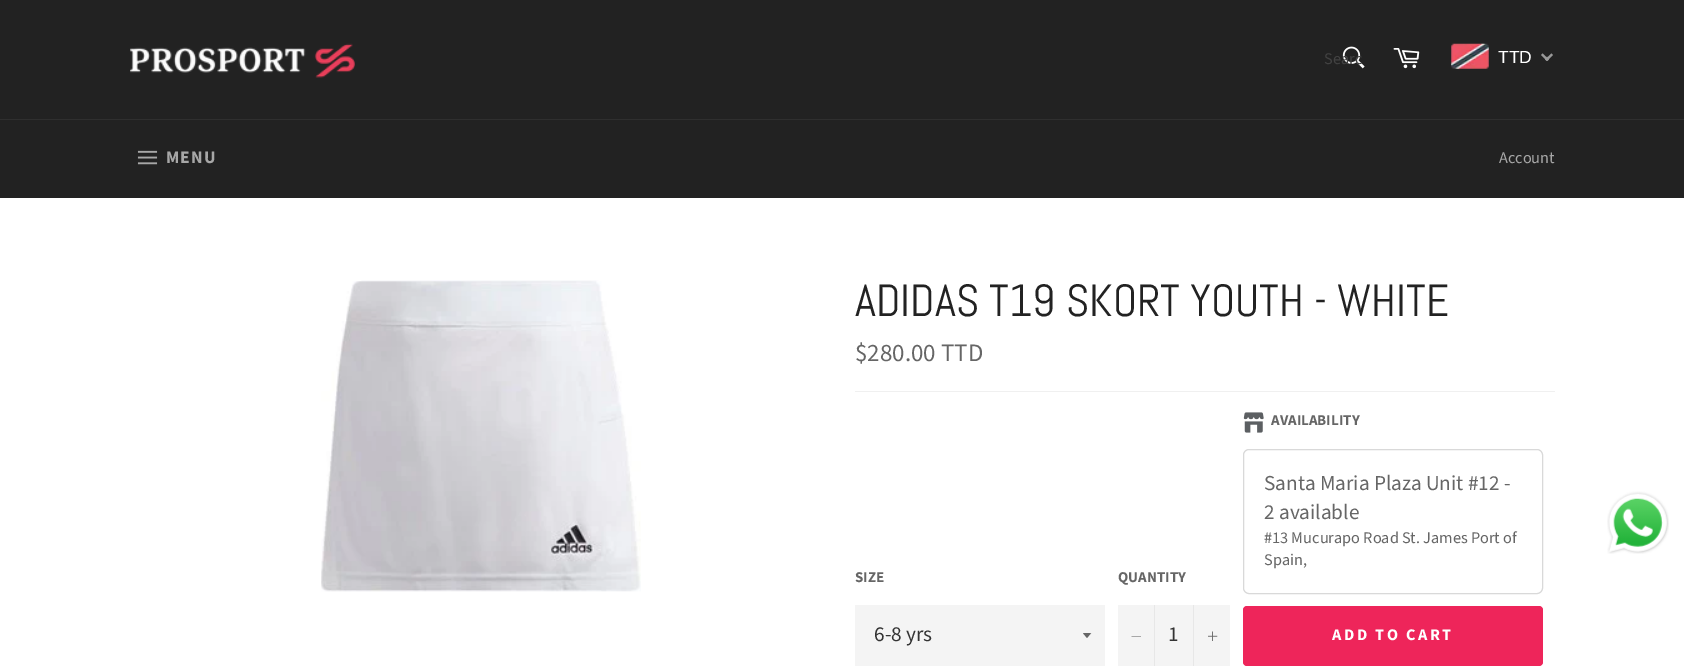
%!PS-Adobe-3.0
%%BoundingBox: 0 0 1684 670
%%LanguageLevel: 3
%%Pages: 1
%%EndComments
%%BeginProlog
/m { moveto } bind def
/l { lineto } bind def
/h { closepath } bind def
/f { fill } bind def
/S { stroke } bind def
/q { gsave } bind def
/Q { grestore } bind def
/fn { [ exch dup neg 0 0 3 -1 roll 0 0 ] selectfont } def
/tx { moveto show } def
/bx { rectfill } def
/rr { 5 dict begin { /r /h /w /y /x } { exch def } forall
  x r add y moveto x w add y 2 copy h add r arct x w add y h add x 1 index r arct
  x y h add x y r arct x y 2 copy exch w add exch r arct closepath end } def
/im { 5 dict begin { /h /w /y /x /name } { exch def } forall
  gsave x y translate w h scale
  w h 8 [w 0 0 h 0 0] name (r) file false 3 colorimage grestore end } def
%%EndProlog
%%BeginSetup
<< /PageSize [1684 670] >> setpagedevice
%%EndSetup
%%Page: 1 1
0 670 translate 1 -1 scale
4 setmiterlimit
1 setgray
0 0 1684 670 bx
0.133 setgray
0 0 1684 119 bx
(image0.raw) 130 43 225 35 im
(image1.raw) 1342 46 23 23 im
/SourceSansPro-Regular 16.25 fn
0.259 setgray
(Searc) 1324 64 tx
(image2.raw) 1393 48 27 21 im
(image3.raw) 1451 43 38 26 im
/LiberationSans-Regular 17.5 fn
1 setgray
(TTD) 1498 63 tx
0.6 setgray
1551.5 53.5 m 1553 55 l 1547 61 l 1545 59.5 l h f
1542.5 53.5 m 1549 59.5 l 1547 61 l 1541 55 l h f
0.133 setgray
0 120 1684 78 bx
0.184 setgray
0 119 1684 1 bx
(image4.raw) 137 150 21 15 im
/SourceSansPro-Bold 17.5 fn
0.655 setgray
166 163 m 1 0 (MENU) ashow
/SourceSansPro-Regular 16.25 fn
(Account) 1499 163 tx
(image5.raw) 321 280 320 312 im
/Abel-Regular 45 fn
0.133 setgray
(ADIDAS T19 SKORT YOUTH - WHITE) 855 316 tx
/SourceSansPro-Regular 25 fn
0.4 setgray
($280.00 TTD) 855 361 tx
0.941 setgray
855 391 700 1 bx
/SourceSansPro-Bold 15 fn
0.4 setgray
(SIZE) 855 582 tx
0.957 setgray
855 605 250 61 bx
q
1083 633 10 6 rectclip
0.4 setgray
1082.5 632.5 m 1087 638 l 1091.5 632.5 l h f
Q
/SourceSansPro-Regular 21.25 fn
0.2 setgray
(6-8 yrs) 874 641 tx
/SourceSansPro-Bold 15 fn
0.4 setgray
(QUANTITY) 1118 582 tx
0.957 setgray
1118 605 112 61 bx
0.906 setgray
1154 605 1 61 bx
0.4 setgray
1141 636 m 1141 636.5 l 1131.5 636.5 l 1131.5 636 l h eofill
/SourceSansPro-Regular 21.25 fn
0.2 setgray
(1) 1168 641 tx
0.906 setgray
1193 605 1 61 bx
(image6.raw) 1208 631 10 10 im
(image7.raw) 1243 412 21 21 im
/SourceSansPro-Bold 15 fn
0.4 setgray
(AVAILABILITY) 1271 425 tx
0.851 setgray
1243.5 449.5 299 144 5.5 rr S
/SourceSansPro-Regular 21.25 fn
0.4 setgray
(Santa Maria Plaza Unit #12 -) 1264 490 tx
(2 available) 1264 519 tx
/SourceSansPro-Regular 16.25 fn
(#13 Mucurapo Road St. James Port of) 1264 543 tx
(Spain,) 1264 565 tx
0.933 0.145 0.353 setrgbcolor
1243 606 300 60 4 rr f
/SourceSansPro-Bold 16.25 fn
1 setgray
1332 640 m 2.5 0 (ADD TO CART) ashow
(image8.raw) 1607 491 62 63 im
showpage
%%EOF
